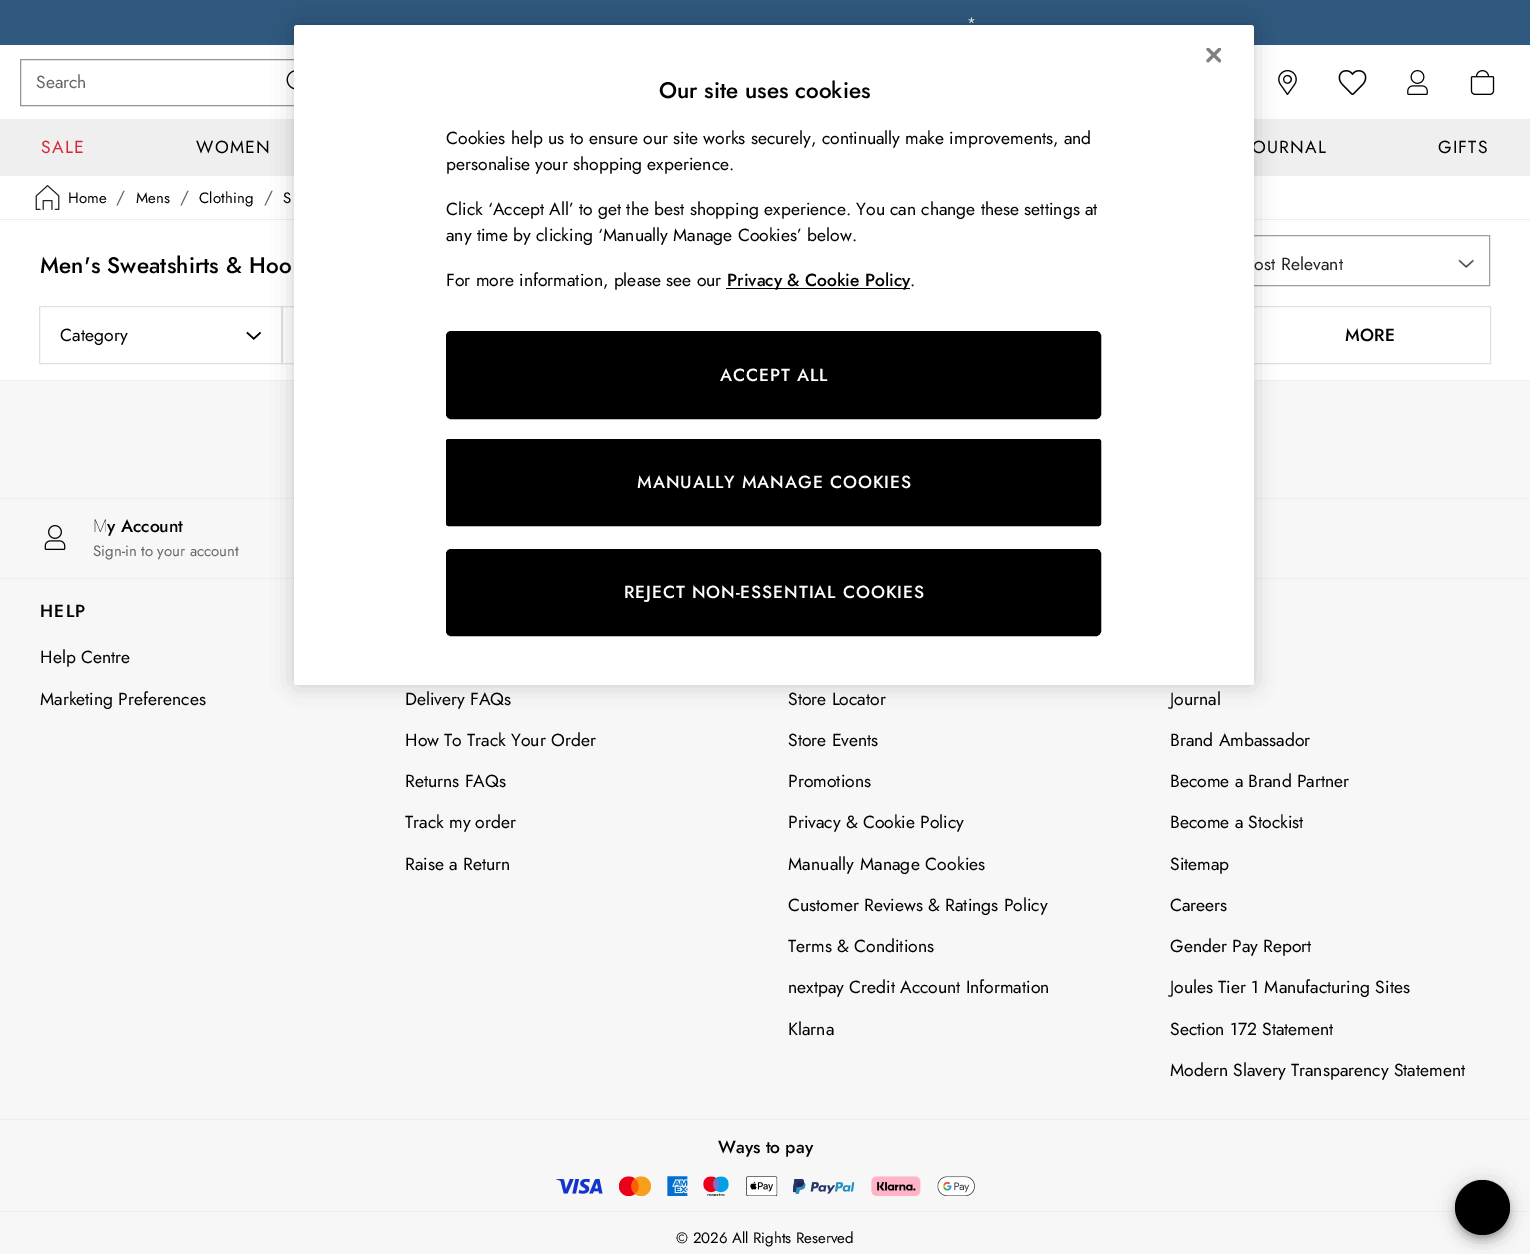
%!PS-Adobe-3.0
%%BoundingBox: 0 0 1530 1254
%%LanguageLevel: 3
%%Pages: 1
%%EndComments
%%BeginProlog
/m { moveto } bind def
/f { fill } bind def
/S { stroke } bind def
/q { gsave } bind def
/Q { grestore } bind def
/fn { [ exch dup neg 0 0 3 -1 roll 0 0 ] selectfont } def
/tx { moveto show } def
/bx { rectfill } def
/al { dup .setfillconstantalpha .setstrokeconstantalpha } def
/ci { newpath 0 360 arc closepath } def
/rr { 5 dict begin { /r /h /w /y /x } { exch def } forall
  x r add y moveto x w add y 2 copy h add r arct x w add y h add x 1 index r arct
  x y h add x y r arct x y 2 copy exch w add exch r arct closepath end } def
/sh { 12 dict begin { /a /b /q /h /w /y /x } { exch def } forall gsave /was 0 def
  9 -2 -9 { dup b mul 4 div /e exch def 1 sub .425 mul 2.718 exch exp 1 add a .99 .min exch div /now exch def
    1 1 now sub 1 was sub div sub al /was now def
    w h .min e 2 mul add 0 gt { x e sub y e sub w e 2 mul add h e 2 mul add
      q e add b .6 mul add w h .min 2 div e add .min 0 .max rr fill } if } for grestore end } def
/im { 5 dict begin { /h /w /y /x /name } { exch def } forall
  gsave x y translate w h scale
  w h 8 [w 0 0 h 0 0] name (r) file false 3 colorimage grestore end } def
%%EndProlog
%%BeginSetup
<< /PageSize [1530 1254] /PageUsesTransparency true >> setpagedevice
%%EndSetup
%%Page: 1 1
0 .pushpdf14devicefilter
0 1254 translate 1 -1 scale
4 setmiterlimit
1 setgray
0 0 1530 1254 bx
0.184 0.349 0.494 setrgbcolor
0 0 1530 45 bx
/Jost-Regular 15 fn
1 setgray
(*) 967 28 tx
0.933 setgray
0 119 1530 1 bx
0.58 setgray
20.5 59.5 302 46 rectstroke
/Jost-Regular 17.5 fn
0.4 setgray
(Search) 36 88 tx
(image0.raw) 286 70 8 20 im
(image1.raw) 1278 70 19 25 im
(image2.raw) 1338 70 29 25 im
(image3.raw) 1407 70 21 25 im
(image4.raw) 1470 70 25 25 im
0.937 setgray
0 120 1530 55 bx
0.839 0.157 0.224 setrgbcolor
41 153 m 1.25 0 (SALE) ashow
0 setgray
196 153 m 1.25 0 (WOMEN) ashow
1252 153 m 1.25 0 (OURNAL) ashow
1438 153 m 1.25 0 (GIFTS) ashow
0.933 setgray
0 175 1530 1 bx
0 219 1530 1 bx
(image7.raw) 1458 259 17 9 im
0.62 setgray
1220.5 235.5 269 50 rectstroke
0.878 setgray
39.5 306.5 243 57 rectstroke
(image8.raw) 246 331 15 9 im
281.5 306.5 242 57 rectstroke
1249.5 306.5 241 57 rectstroke
0.969 setgray
0 381 1530 117 bx
0.933 setgray
0 380 1530 1 bx
0.969 setgray
0 499 1530 79 bx
0.933 setgray
0 498 1530 1 bx
0.969 setgray
0 579 1530 540 bx
0.933 setgray
0 578 1530 1 bx
0 setgray
294 25 960 660 3 11 0.2 sh
1 setgray
294 25 960 660 3 rr f
(image5.raw) 1206 48 15 15 im
/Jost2-Medium 22.5 fn
0 setgray
(Our site uses cookies) 659 98 tx
/Jost2-Regular 17.5 fn
(Cookies help us to ensure our site works securely, continually make improvements, and) 446 144 tx
(personalise your shopping experience.) 446 170 tx
(Click ‘Accept All’ to get the best shopping experience. You can change these settings at) 446 215 tx
(any time by clicking ‘Manually Manage Cookies’ below.) 446 241 tx
(For more information, please see our) 446 286 tx
726 288 184 1 bx
/Jost-Medium 17.5 fn
(Privacy & Cookie Policy) 727 286 tx
/Jost2-Regular 17.5 fn
(.) 910 286 tx
446.5 331.5 654 87 4.5 rr q f Q
S
/Jost2-Medium 17.5 fn
1 setgray
720 381 m 0.9 0 (ACCEPT ALL) ashow
0 setgray
446.5 439.5 654 86 2 rr q f Q
S
1 setgray
637 488 m 0.9 0 (MANUALLY MANAGE COOKIES) ashow
0 setgray
446.5 549.5 654 86 4.5 rr q f Q
S
1 setgray
624 598 m 0.9 0 (REJECT NON-ESSENTIAL COOKIES) ashow
(image6.raw) 35 185 25 25 im
/Jost-Regular 15 fn
0 setgray
68 203 m 0.15 0 (Home) ashow
/Jost-Regular 17.5 fn
0.4 setgray
116 203 m 0.15 0 (/) ashow
/Jost-Regular 15 fn
0 setgray
136 203 m 0.15 0 (Mens) ashow
/Jost-Regular 17.5 fn
0.4 setgray
180 203 m 0.15 0 (/) ashow
/Jost-Regular 15 fn
0 setgray
199 203 m 0.15 0 (Clothing) ashow
/Jost-Regular 17.5 fn
0.4 setgray
264 203 m 0.15 0 (/) ashow
/Jost-Regular 15 fn
0 setgray
283 203 m 0.15 0 (S) ashow
/Jost-Medium 22.5 fn
40 273 m 0.15 0 (Men's Sweatshirts & Hoo) ashow
/Jost-Regular 17.5 fn
0.129 setgray
1254 270 m 0.15 0 (ost Relevant) ashow
0 setgray
60 341 m 0.15 0 (Category) ashow
/Jost-Medium 17.5 fn
1345 341 m 0.15 0 (MORE) ashow
0.969 setgray
0 1120 1530 91 bx
0 1212 1530 42 bx
0.933 setgray
0 1211 1530 1 bx
0 setgray
1455 1181 55 55 27.5 11 0.12 sh
1455 1188 55 55 27.5 6 0.14 sh
1456 1185 53 53 26.5 3 0.2 sh
1482.5 1207.5 27.5 ci f
(image9.raw) 44 525 22 25 im
/NotoSans-Thin 17.5 fn
(M) 93 532 tx
/Jost-Medium 17.5 fn
(y Account) 107 532 tx
/Jost-Regular 15 fn
0.4 setgray
(Sign-in to your account) 93 556 tx
/Jost-Medium 17.5 fn
0 setgray
40 617 m 1.25 0 (HELP) ashow
/Jost-Regular 17.5 fn
(Help Centre) 40 663 tx
(Marketing Preferences) 40 705 tx
(Delivery FAQs) 405 705 tx
(How To Track Your Order) 405 746 tx
(Returns FAQs) 405 787 tx
(Track my order) 405 828 tx
(Raise a Return) 405 870 tx
(Store Locator) 788 705 tx
(Store Events) 788 746 tx
(Promotions) 788 787 tx
(Privacy & Cookie Policy) 788 828 tx
788 870 m 0.15 0 (Manually Manage Cookies) ashow
(Customer Reviews & Ratings Policy) 788 911 tx
(Terms & Conditions) 788 952 tx
(nextpay Credit Account Information) 788 993 tx
(Klarna) 788 1035 tx
(Journal) 1170 705 tx
(Brand Ambassador) 1170 746 tx
(Become a Brand Partner) 1170 787 tx
(Become a Stockist) 1170 828 tx
(Sitemap) 1170 870 tx
(Careers) 1170 911 tx
(Gender Pay Report) 1170 952 tx
(Joules Tier 1 Manufacturing Sites) 1170 993 tx
(Section 172 Statement) 1170 1035 tx
(Modern Slavery Transparency Statement) 1170 1076 tx
0.933 setgray
0 1119 1530 1 bx
/Jost-Medium 17.5 fn
0 setgray
(Ways to pay) 718 1153 tx
(image10.raw) 556 1179 47 15 im
(image11.raw) 619 1176 32 20 im
(image12.raw) 667 1176 21 20 im
(image13.raw) 703 1176 26 20 im
(image14.raw) 746 1176 32 20 im
(image15.raw) 793 1179 62 15 im
(image16.raw) 871 1176 50 20 im
(image17.raw) 937 1176 38 20 im
/Jost-Regular 15 fn
(© 2026 All Rights Reserved) 676 1243 tx
.poppdf14devicefilter showpage
%%EOF
